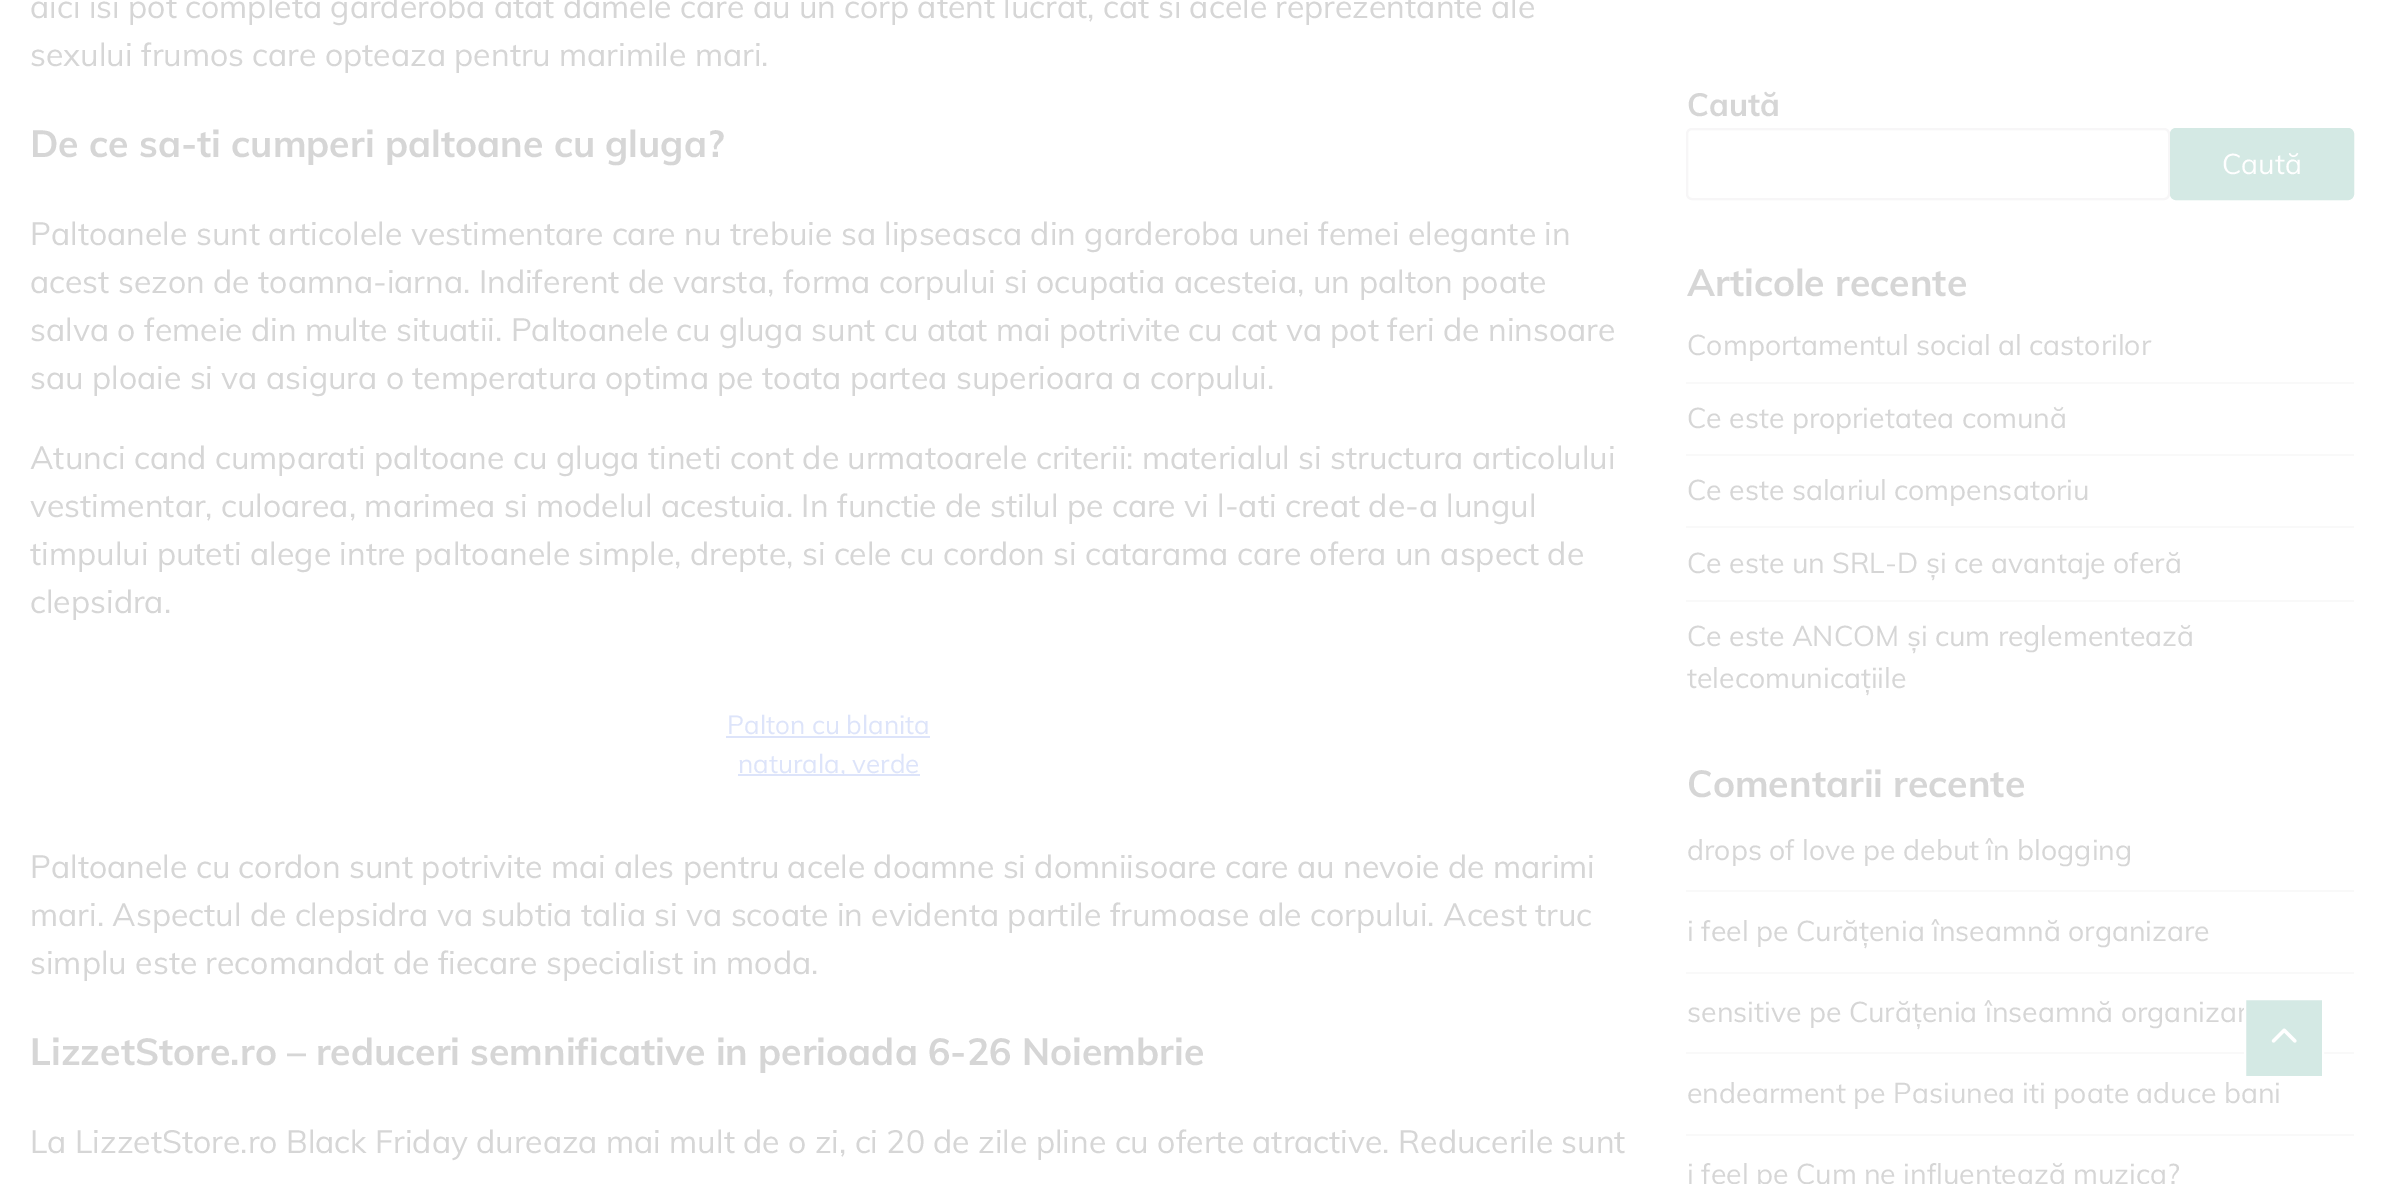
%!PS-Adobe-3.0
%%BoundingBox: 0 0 2384 1184
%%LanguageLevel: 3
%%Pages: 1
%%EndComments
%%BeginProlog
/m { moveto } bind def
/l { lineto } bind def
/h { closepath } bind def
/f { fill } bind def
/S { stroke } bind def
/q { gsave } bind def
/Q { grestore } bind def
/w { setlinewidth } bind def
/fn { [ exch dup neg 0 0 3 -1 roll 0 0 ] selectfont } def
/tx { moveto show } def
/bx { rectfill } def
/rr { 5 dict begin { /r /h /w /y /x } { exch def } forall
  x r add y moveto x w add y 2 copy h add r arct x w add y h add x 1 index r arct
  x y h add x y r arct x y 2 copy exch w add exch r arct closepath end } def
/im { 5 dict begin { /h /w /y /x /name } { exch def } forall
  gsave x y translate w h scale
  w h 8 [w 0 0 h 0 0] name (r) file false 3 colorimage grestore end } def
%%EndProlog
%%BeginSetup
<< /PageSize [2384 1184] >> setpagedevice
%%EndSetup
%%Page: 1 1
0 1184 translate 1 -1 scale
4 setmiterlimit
1 setgray
0 0 2384 1184 bx
/Muli-Regular 32 fn
0.839 setgray
(aici isi pot completa garderoba atat damele care au un corp atent lucrat, cat si acele reprezentante ale) 30 18 tx
(sexului frumos care opteaza pentru marimile mari.) 30 66 tx
/Muli-Bold 37.45 fn
(De ce sa-ti cumperi paltoane cu gluga?) 30 157 tx
/Muli-Regular 32 fn
(Paltoanele sunt articolele vestimentare care nu trebuie sa lipseasca din garderoba unei femei elegante in) 30 245 tx
(acest sezon de toamna-iarna. Indiferent de varsta, forma corpului si ocupatia acesteia, un palton poate) 30 293 tx
(salva o femeie din multe situatii. Paltoanele cu gluga sunt cu atat mai potrivite cu cat va pot feri de ninsoare) 30 341 tx
(sau ploaie si va asigura o temperatura optima pe toata partea superioara a corpului.) 30 389 tx
(Atunci cand cumparati paltoane cu gluga tineti cont de urmatoarele criterii: materialul si structura articolului) 30 469 tx
(vestimentar, culoarea, marimea si modelul acestuia. In functie de stilul pe care vi l-ati creat de-a lungul) 30 517 tx
(timpului puteti alege intre paltoanele simple, drepte, si cele cu cordon si catarama care ofera un aspect de) 30 565 tx
(clepsidra.) 30 613 tx
/Muli-Regular 26 fn
0.867 0.894 0.98 setrgbcolor
(Palton cu blanita) 727 734 tx
726 736 204 2 bx
738 774 182 2 bx
(naturala, verde) 738 773 tx
/Muli-Regular 32 fn
0.839 setgray
(Paltoanele cu cordon sunt potrivite mai ales pentru acele doamne si domniisoare care au nevoie de marimi) 30 878 tx
(mari. Aspectul de clepsidra va subtia talia si va scoate in evidenta partile frumoase ale corpului. Acest truc) 30 926 tx
(simplu este recomandat de fiecare specialist in moda.) 30 974 tx
/Muli-Bold 37.45 fn
30 1065 m -0.25 0 32 (LizzetStore.ro – reduceri semnificative in perioada 6-26 Noiembrie) widthshow
/Muli-Regular 32 fn
(La LizzetStore.ro Black Friday dureaza mai mult de o zi, ci 20 de zile pline cu oferte atractive. Reducerile sunt) 30 1153 tx
/Muli-Bold 32 fn
(Caută) 1687 116 tx
0.969 0.965 0.969 setrgbcolor
2 w
1687 129 482 70 5 rr S
0.831 0.914 0.894 setrgbcolor
2171 129 182 70 5 rr q f Q
S
/Muli-Regular 28.4 fn
1 setgray
(Caută) 2222 174 tx
/Muli-Bold 37.45 fn
0.839 setgray
(Articole recente) 1687 296 tx
0.976 setgray
1686 382 668 2 bx
/Muli-Regular 28.4 fn
0.839 setgray
(Comportamentul social al castorilor) 1687 355 tx
0.976 setgray
1686 454 668 2 bx
0.839 setgray
(Ce este proprietatea comună) 1687 428 tx
0.976 setgray
1686 526 668 2 bx
0.839 setgray
(Ce este salariul compensatoriu) 1687 500 tx
0.976 setgray
1686 600 668 2 bx
0.839 setgray
(Ce este un SRL-D și ce avantaje oferă) 1687 573 tx
(Ce este ANCOM și cum reglementează) 1687 646 tx
(telecomunicațiile) 1687 688 tx
/Muli-Bold 37.45 fn
(Comentarii recente) 1687 797 tx
0.976 setgray
1686 890 668 2 bx
/Muli-Regular 28.4 fn
0.839 setgray
(drops of love pe debut în blogging) 1687 860 tx
0.976 setgray
1686 972 668 2 bx
0.839 setgray
(i feel pe Curățenia înseamnă organizare) 1687 941 tx
0.976 setgray
1686 1052 668 2 bx
0.839 setgray
(sensitive pe Curățenia înseamnă organizar) 1687 1022 tx
0.976 setgray
1686 1134 668 2 bx
0.839 setgray
(endearment pe Pasiunea iti poate aduce bani) 1687 1103 tx
(i feel pe Cum ne influențează muzica?) 1687 1184 tx
0.831 0.914 0.894 setrgbcolor
2245 999 m 2323 999 l 2323 1077 l 2245 1077 l h q f Q
1 setgray
S
(image0.raw) 2271 1028 26 15 im
showpage
%%EOF
